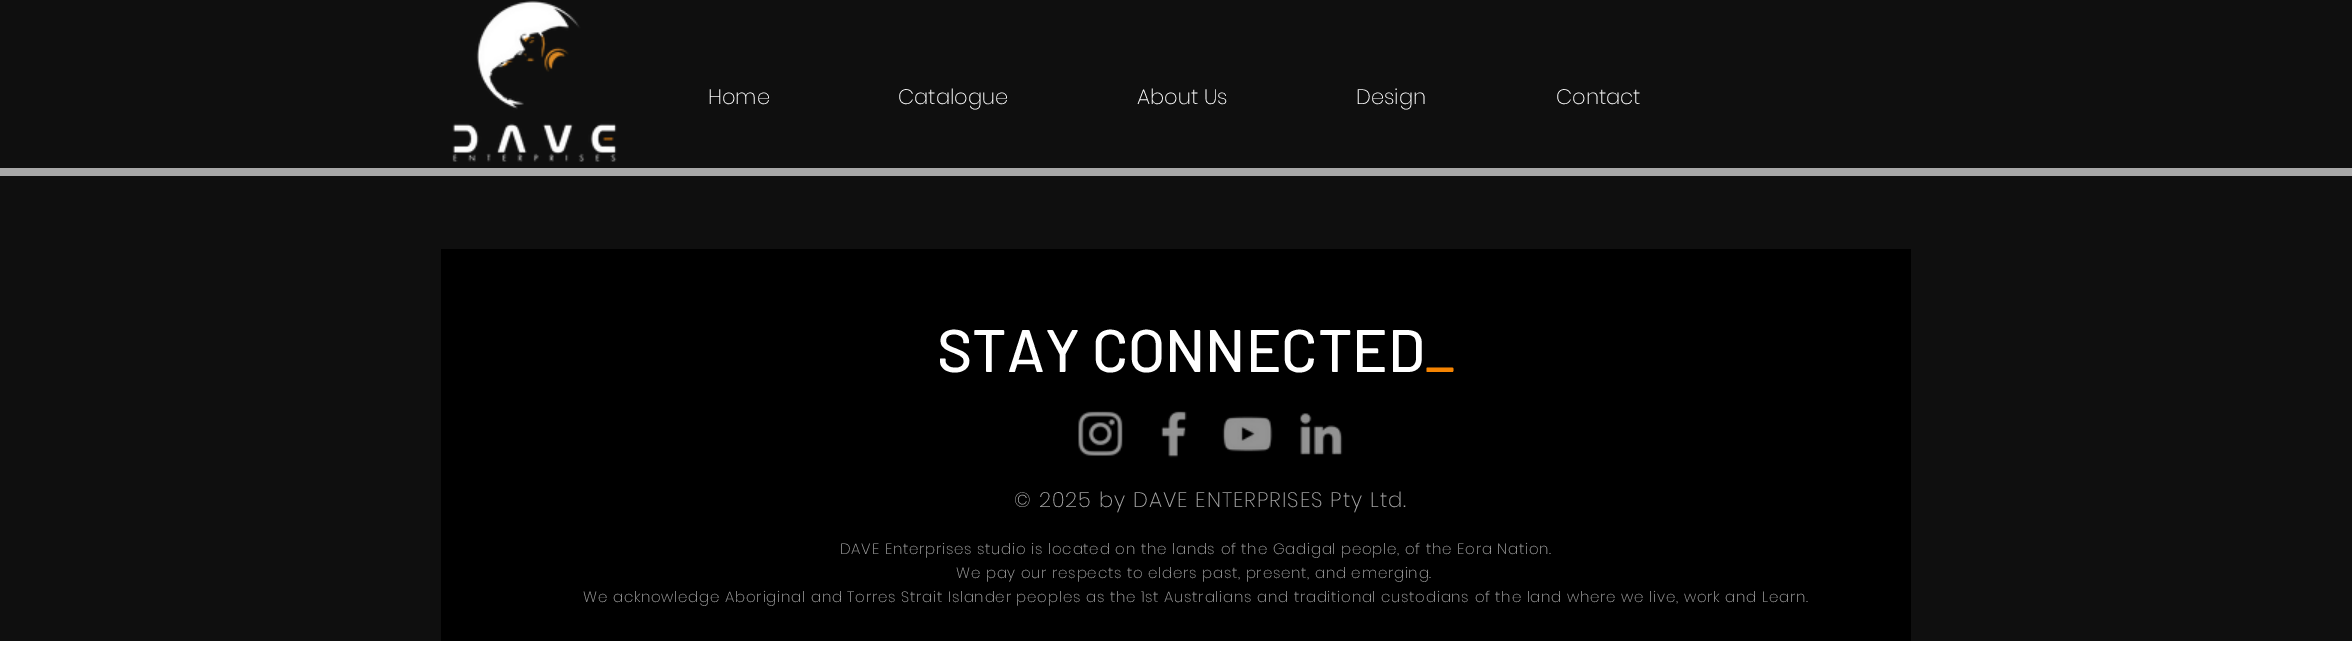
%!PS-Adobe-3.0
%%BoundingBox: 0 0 2352 663
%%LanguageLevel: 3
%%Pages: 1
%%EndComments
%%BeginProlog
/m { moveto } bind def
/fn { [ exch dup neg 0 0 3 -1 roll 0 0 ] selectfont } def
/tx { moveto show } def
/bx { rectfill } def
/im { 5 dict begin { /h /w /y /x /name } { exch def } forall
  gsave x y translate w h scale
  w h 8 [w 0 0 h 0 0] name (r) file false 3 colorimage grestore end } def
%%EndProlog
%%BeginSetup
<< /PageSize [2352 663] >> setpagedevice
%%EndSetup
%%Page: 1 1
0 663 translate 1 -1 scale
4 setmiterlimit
1 setgray
0 0 2352 663 bx
0.059 setgray
0 0 2352 168 bx
0.659 setgray
0 168 2352 8 bx
(image0.raw) 452 0 165 162 im
/Poppins-ExtraLight 21 fn
1 setgray
(Home) 708 104 tx
(Catalogue) 898 104 tx
(About Us) 1137 104 tx
(Design) 1356 104 tx
(Contact) 1556 104 tx
0.059 setgray
0 176 2352 465 bx
0 setgray
441 249 1470 392 bx
/Barlow-Medium 60 fn
1 setgray
(STAY CONNECTED) 937 372 tx
0.961 0.518 0.008 setrgbcolor
(_) 1425 372 tx
(image1.raw) 1078 411 45 45 im
(image2.raw) 1161 411 26 47 im
(image3.raw) 1222 416 51 36 im
(image4.raw) 1299 413 44 42 im
/Poppins-ExtraLight 21 fn
0.659 setgray
1014 507 m 1.05 0 (© 2025 by DAVE ENTERPRISES Pty Ltd.) ashow
/Poppins-ExtraLight 15 fn
840 554 m 0.75 0 (DAVE Enterprises studio is located on the lands of the Gadigal people, of the Eora Nation.) ashow
956 578 m 0.75 0 (We pay our respects to elders past, present, and emerging.) ashow
583 602 m 0.75 0 (We acknowledge Aboriginal and Torres Strait Islander peoples as the 1st Australians and traditional custodians of the land where we live, work and Learn.) ashow
showpage
%%EOF
